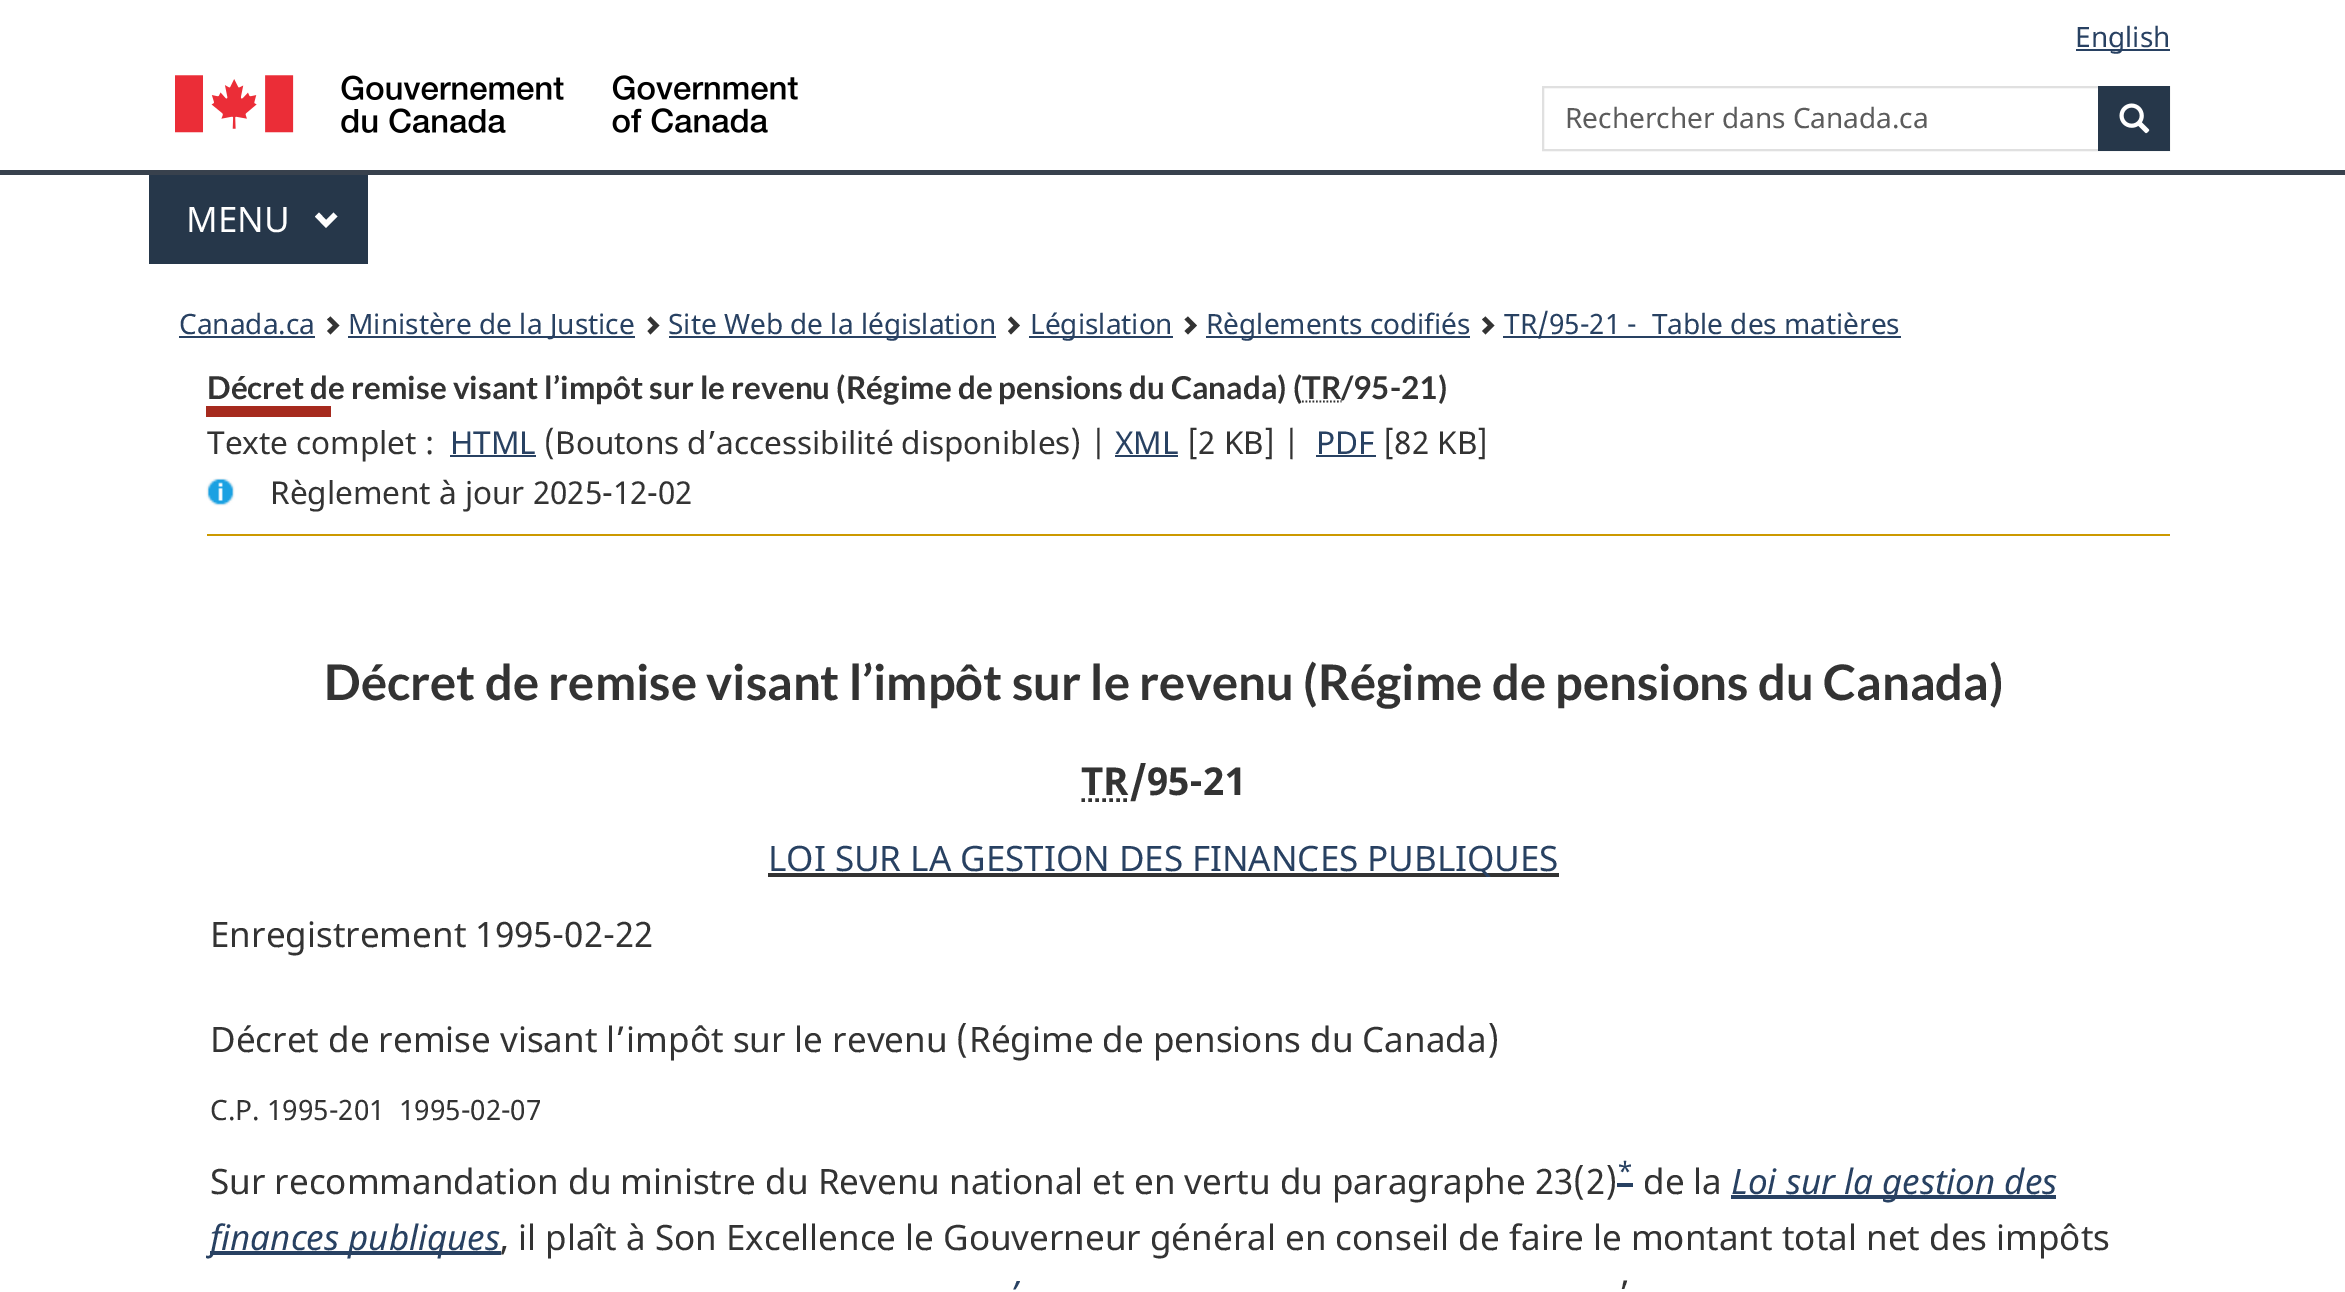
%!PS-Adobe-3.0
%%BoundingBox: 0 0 2345 1292
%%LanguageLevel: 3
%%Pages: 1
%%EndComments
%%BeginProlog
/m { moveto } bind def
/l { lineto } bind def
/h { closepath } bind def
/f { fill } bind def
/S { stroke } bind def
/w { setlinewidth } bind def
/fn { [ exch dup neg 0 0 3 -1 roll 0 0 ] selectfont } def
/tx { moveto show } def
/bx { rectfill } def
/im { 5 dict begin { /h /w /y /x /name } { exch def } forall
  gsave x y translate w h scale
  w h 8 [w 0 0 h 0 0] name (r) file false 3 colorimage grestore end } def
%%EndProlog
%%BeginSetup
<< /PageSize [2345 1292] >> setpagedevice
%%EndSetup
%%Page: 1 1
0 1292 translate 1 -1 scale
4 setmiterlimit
1 setgray
0 0 2345 1292 bx
0.157 0.255 0.384 setrgbcolor
2076 49 94 2 bx
/NotoSans-Regular 28 fn
(English) 2075 47 tx
(image0.raw) 175 75 623 58 im
0.878 setgray
2 w
1543 87 626 63 rectstroke
0.361 setgray
(Rechercher dans Canada.ca) 1565 128 tx
0.149 0.216 0.29 setrgbcolor
2098 86 72 65 bx
(image1.raw) 2119 103 31 31 im
0.22 0.255 0.302 setrgbcolor
0 170 2345 5 bx
0.149 0.216 0.29 setrgbcolor
149 175 219 89 bx
/NotoSans-Regular 35 fn
1 setgray
(MENU) 186 232 tx
337.5 216.5 m 326 228 l 315 216.5 l 319 212.5 l 326 220 l 333.5 212.5 l h f
/NotoSans-Regular 28 fn
0.157 0.255 0.384 setrgbcolor
(Canada.ca) 179 334 tx
179 336 136 2 bx
0.2 setgray
339.5 325.5 m 330.5 334.5 l 327 331 l 333 325.5 l 327 319.5 l 330.5 316.5 l h f
0.157 0.255 0.384 setrgbcolor
348 336 287 2 bx
(Ministère de la Justice) 348 334 tx
0.2 setgray
659.5 325.5 m 650.5 334.5 l 647.5 331 l 653 325.5 l 647.5 319.5 l 650.5 316.5 l h f
0.157 0.255 0.384 setrgbcolor
669 336 327 2 bx
(Site Web de la législation) 668 334 tx
0.2 setgray
1020 325.5 m 1011 334.5 l 1008 331 l 1013.5 325.5 l 1008 319.5 l 1011 316.5 l h f
0.157 0.255 0.384 setrgbcolor
1029 336 144 2 bx
(Législation) 1030 334 tx
0.2 setgray
1197 325.5 m 1188 334.5 l 1184.5 331 l 1190.5 325.5 l 1184.5 319.5 l 1188 316.5 l h f
0.157 0.255 0.384 setrgbcolor
1206 336 264 2 bx
(Règlements codifiés) 1206 334 tx
0.2 setgray
1494.5 325.5 m 1485.5 334.5 l 1482 331 l 1488 325.5 l 1482 319.5 l 1485.5 316.5 l h f
0.157 0.255 0.384 setrgbcolor
1503 336 398 2 bx
(TR/95-21 -  Table des matières) 1504 334 tx
0.651 0.165 0.118 setrgbcolor
206 406 125 11 bx
/Lato-Bold 31.5 fn
0.2 setgray
(Décret de remise visant l’impôt sur le revenu \(Régime de pensions du Canada\) \(TR) 207 399 tx
1.8 w
[1.75 1.75] 0 setdash
1302 401.5 m 1341.5 401.5 l S
(/95-21\)) 1341 399 tx
/NotoSans-Regular 31.5 fn
(Texte complet :) 207 454 tx
0.157 0.255 0.384 setrgbcolor
(HTML) 450 454 tx
450 455 86 2 bx
0.2 setgray
(\(Boutons d’accessibilité disponibles\) |) 544 454 tx
0.157 0.255 0.384 setrgbcolor
(XML) 1115 454 tx
1115 455 63 2 bx
0.2 setgray
([2 KB] |) 1187 454 tx
0.157 0.255 0.384 setrgbcolor
(PDF) 1316 454 tx
1316 455 60 2 bx
0.2 setgray
([82 KB]) 1383 454 tx
(image2.raw) 206 478 29 28 im
(Règlement à jour 2025-12-02) 270 504 tx
0.8 0.6 0 setrgbcolor
207 534 1963 2 bx
/Lato-Bold 49 fn
0.2 setgray
(Décret de remise visant l’impôt sur le revenu \(Régime de pensions du Canada\)) 324 700 tx
3.5 w
[3.5 3.5] 0 setdash
1081.5 800 m 1129 800 l S
/NotoSans-Bold 38.5 fn
(TR/95-21) 1081 795 tx
768 873 791 4 bx
/NotoSans-Regular 35 fn
0.157 0.255 0.384 setrgbcolor
(LOI SUR LA GESTION DES FINANCES PUBLIQUES) 768 871 tx
0.2 setgray
(Enregistrement 1995-02-22) 210 947 tx
(Décret de remise visant l’impôt sur le revenu \(Régime de pensions du Canada\)) 210 1052 tx
/NotoSans-Regular 28 fn
(C.P. 1995-201  1995-02-07) 210 1120 tx
/NotoSans-Regular 35 fn
(Sur recommandation du ministre du Revenu national et en vertu du paragraphe 23\(2\)) 210 1194 tx
/NotoSans-Regular 26 fn
0.157 0.255 0.384 setrgbcolor
(*) 1617 1180 tx
1617 1183 16 4 bx
/NotoSans-Regular 35 fn
0.2 setgray
(de la) 1643 1194 tx
0.157 0.255 0.384 setrgbcolor
1731 1195 325 4 bx
/NotoSans-Italic 35 fn
(Loi sur la gestion des) 1731 1194 tx
210 1251 291 4 bx
(finances publiques) 210 1250 tx
/NotoSans-Regular 35 fn
0.2 setgray
(, il plaît à Son Excellence le Gouverneur général en conseil de faire le montant total net des impôts) 500 1250 tx
/NotoSans-Italic 35 fn
0.157 0.255 0.384 setrgbcolor
(’) 1011 1306 tx
/NotoSans-Regular 35 fn
0.2 setgray
(’) 1619 1306 tx
showpage
%%EOF
